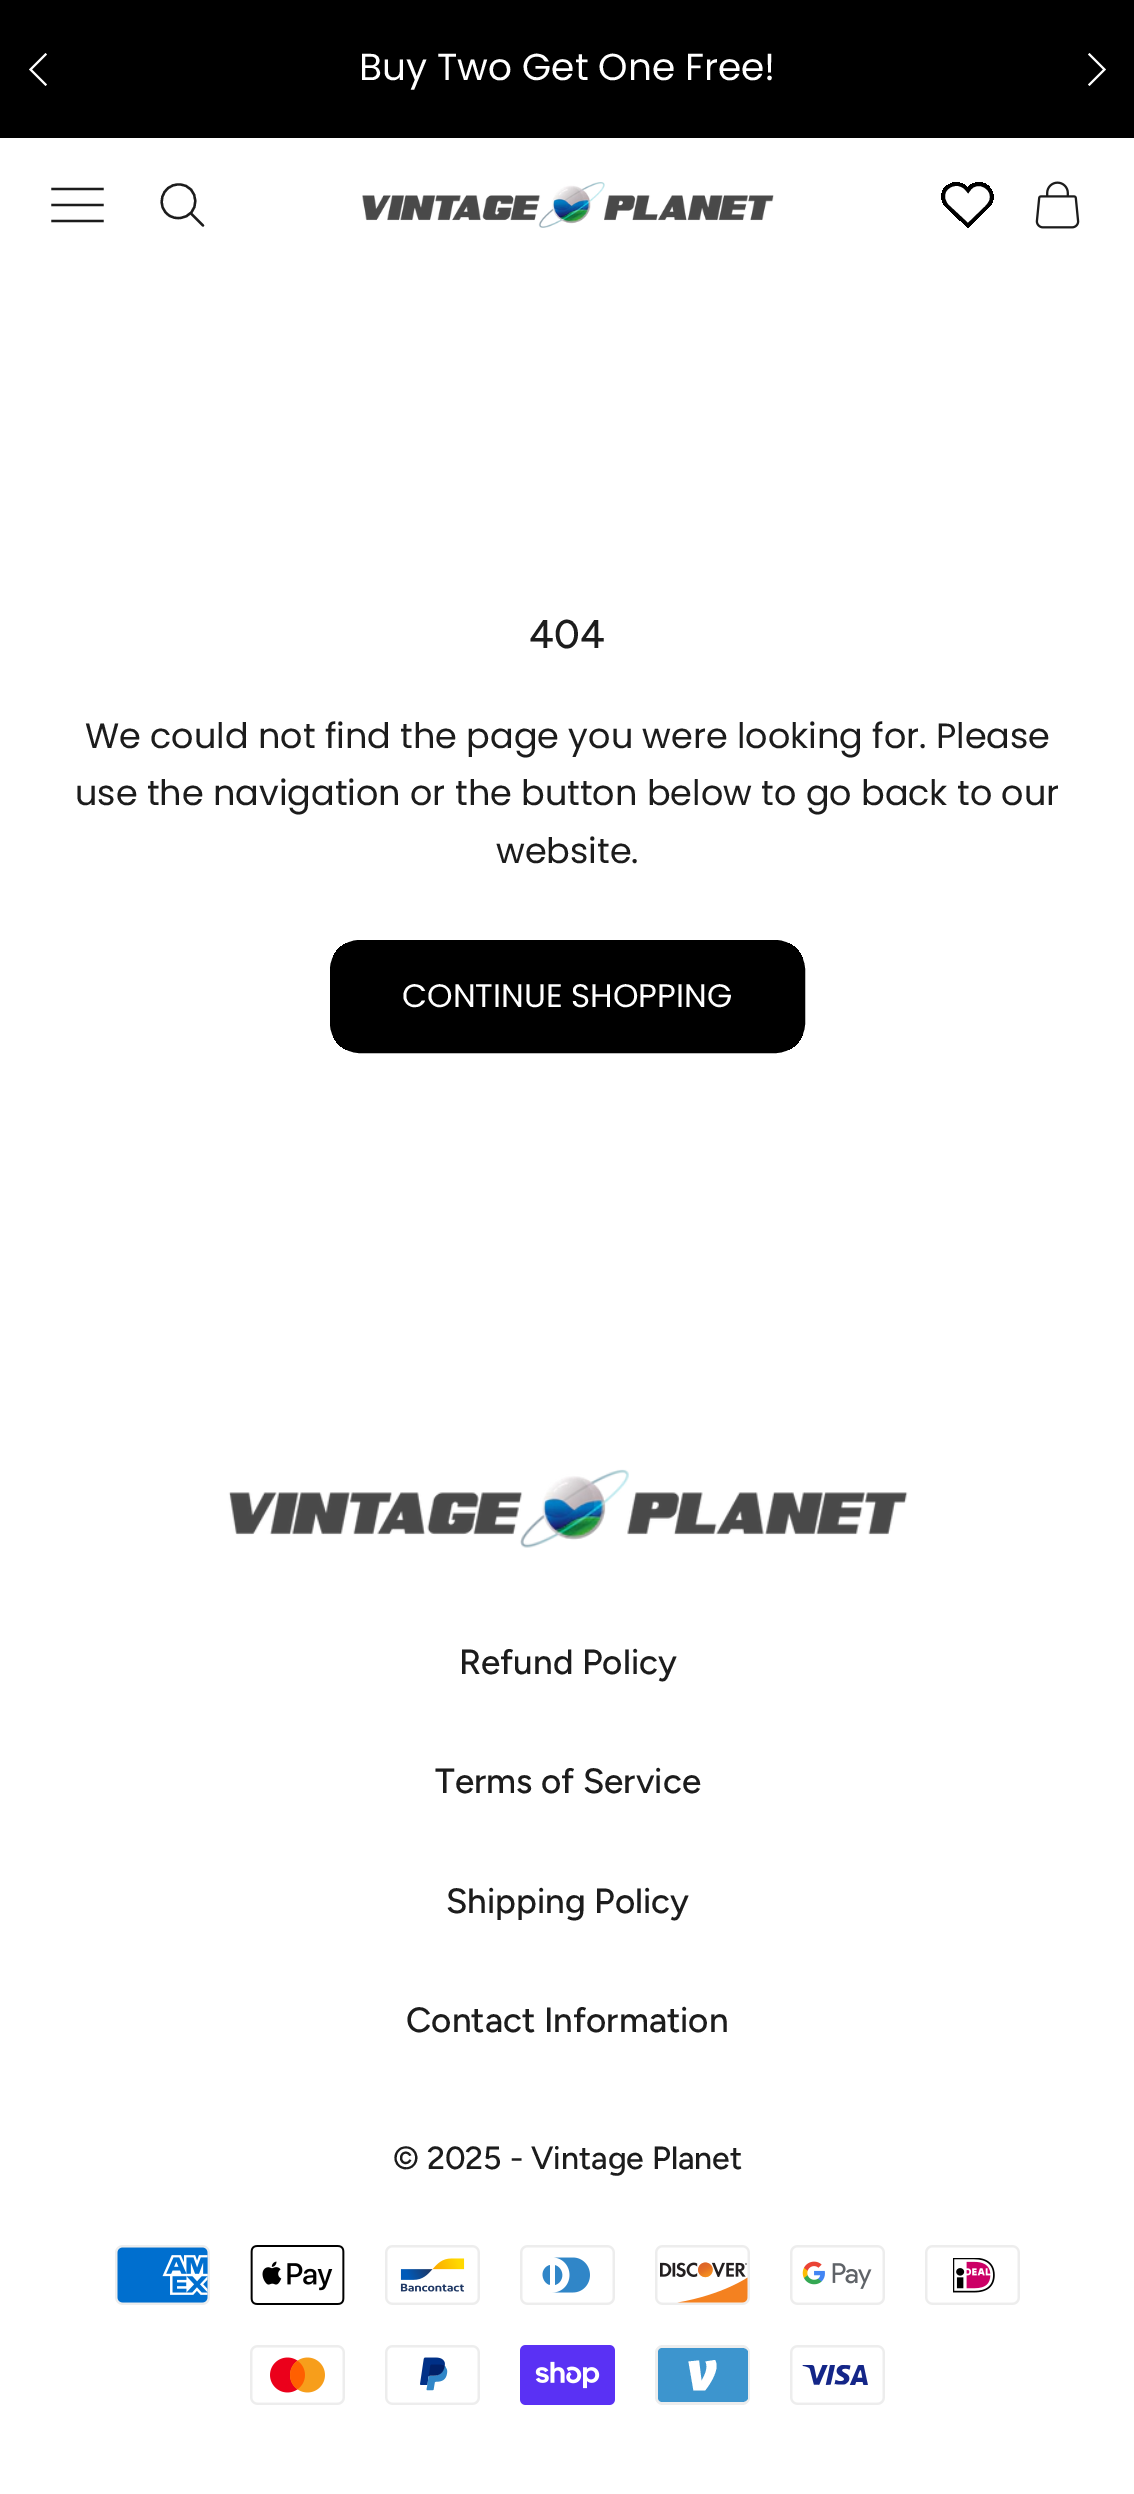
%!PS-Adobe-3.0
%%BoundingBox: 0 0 1134 2494
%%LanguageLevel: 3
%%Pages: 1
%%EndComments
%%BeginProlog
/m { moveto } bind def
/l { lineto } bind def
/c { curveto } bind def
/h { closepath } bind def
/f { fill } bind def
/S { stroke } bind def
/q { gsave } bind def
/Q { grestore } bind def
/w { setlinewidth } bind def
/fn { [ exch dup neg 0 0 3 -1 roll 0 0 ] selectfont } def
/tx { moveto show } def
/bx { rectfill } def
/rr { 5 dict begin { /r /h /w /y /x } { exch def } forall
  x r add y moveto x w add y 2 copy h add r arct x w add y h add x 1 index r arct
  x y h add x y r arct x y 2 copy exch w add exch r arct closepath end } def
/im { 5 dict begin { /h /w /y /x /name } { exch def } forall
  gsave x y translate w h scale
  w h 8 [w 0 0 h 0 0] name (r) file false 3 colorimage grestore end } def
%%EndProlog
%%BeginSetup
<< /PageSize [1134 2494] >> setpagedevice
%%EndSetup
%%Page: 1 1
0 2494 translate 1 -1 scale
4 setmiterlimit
1 setgray
0 0 1134 2494 bx
0 setgray
0 0 1134 138 bx
1 setgray
1.9 w
2 setlinecap
45.5 54.5 m 30.5 69.5 l 45.5 84.5 l S
/Poppins-Regular 37.5 fn
(Buy Two Get One Free!) 359 80 tx
1089.5 84.5 m 1104.5 69.5 l 1089.5 54.5 l S
0.11 setgray
2.3 w
52.5 221 m 102.5 221 l 52.5 205 m 102.5 205 l 52.5 189 m 102.5 189 l S
0 setlinecap
179 184.5 m 161.5 184 155 207.5 170 216 c 173 217.5 176 218.5 179 218 c 201.5 217 200 184.5 179 184.5 c h S
1 setlinecap
191.5 214 m 203 225.5 l S
(image0.raw) 362 182 412 46 im
q
941.5 182.5 m 993.5 182.5 l 993.5 227.5 l 941.5 227.5 l h clip newpath
943.5 189.5 m 939.5 196.5 942.5 203 946 207 c 968 227.5 l 989 207 l 992.5 203 994 199 993 194.5 c 992 188 987 183.5 980.5 182.5 c 976.5 182 973 183.5 970 185.5 c 968 188 l 965 185.5 l 962 183 957.5 182 953.5 182.5 c 949.5 183.5 946 186 943.5 189.5 c h clip newpath
0 setgray
6.6 w
0 setlinecap
943.5 189.5 m 939.5 196.5 942.5 203 946 207 c 968 227.5 l 982 214 l 985.5 210.5 990 207 992 202.5 c 999 187.5 977.5 175 968 188 c 961.5 180 949 181 943.5 189.5 c h S
Q
(image1.raw) 1035 181 45 48 im
/Figtree-Medium 40 fn
(404) 529 648 tx
/Poppins-Regular 35 fn
(We could not find the page you were looking for. Please) 85 748 tx
(use the navigation or the button below to go back to our) 75 805 tx
(website.) 496 863 tx
q
330 940 475 113 30 rr clip newpath
0 setgray
333 943 470 107 bx
Q
0 setgray
3 w
0 setlinecap
331.5 941.5 472 110 28.5 rr S
/Poppins-Regular 32.5 fn
1 setgray
(CONTINUE SHOPPING) 402 1007 tx
(image2.raw) 228 1469 680 79 im
/Figtree-Medium 35 fn
0.11 setgray
(Refund Policy) 459 1674 tx
(Terms of Service) 435 1793 tx
(Shipping Policy) 446 1913 tx
(Contact Information) 406 2032 tx
/Figtree-Medium 32 fn
(© 2025 - Vintage Planet) 393 2169 tx
(image3.raw) 115 2245 95 60 im
(image4.raw) 250 2245 95 60 im
(image5.raw) 385 2245 95 60 im
(image6.raw) 520 2245 95 60 im
(image7.raw) 655 2245 95 60 im
(image8.raw) 790 2245 95 60 im
(image9.raw) 925 2245 95 60 im
(image10.raw) 250 2345 95 60 im
(image11.raw) 385 2345 95 60 im
(image12.raw) 520 2345 95 60 im
0.929 setgray
655 2345 95 60 8 rr f
0.239 0.584 0.808 setrgbcolor
742 2348 m 745 2348 748 2350 748 2352 c 748 2398 l 748 2400 745 2402 742 2402 c 662 2402 l 660 2402 658 2400 658 2398 c 658 2352 l 658 2350 660 2348 662 2348 c 742 2348 l eofill
1 setgray
716.5 2366 m 716.5 2373.5 710.5 2383.5 705 2390.5 c 693.5 2390.5 l 688.5 2361.5 l 699 2360.5 l 701.5 2381 l 704.5 2375.5 708.5 2368 705.5 2361.5 c 715 2360 l 716 2361.5 716.5 2363.5 716.5 2366 c h f
(image13.raw) 790 2345 95 60 im
showpage
%%EOF
